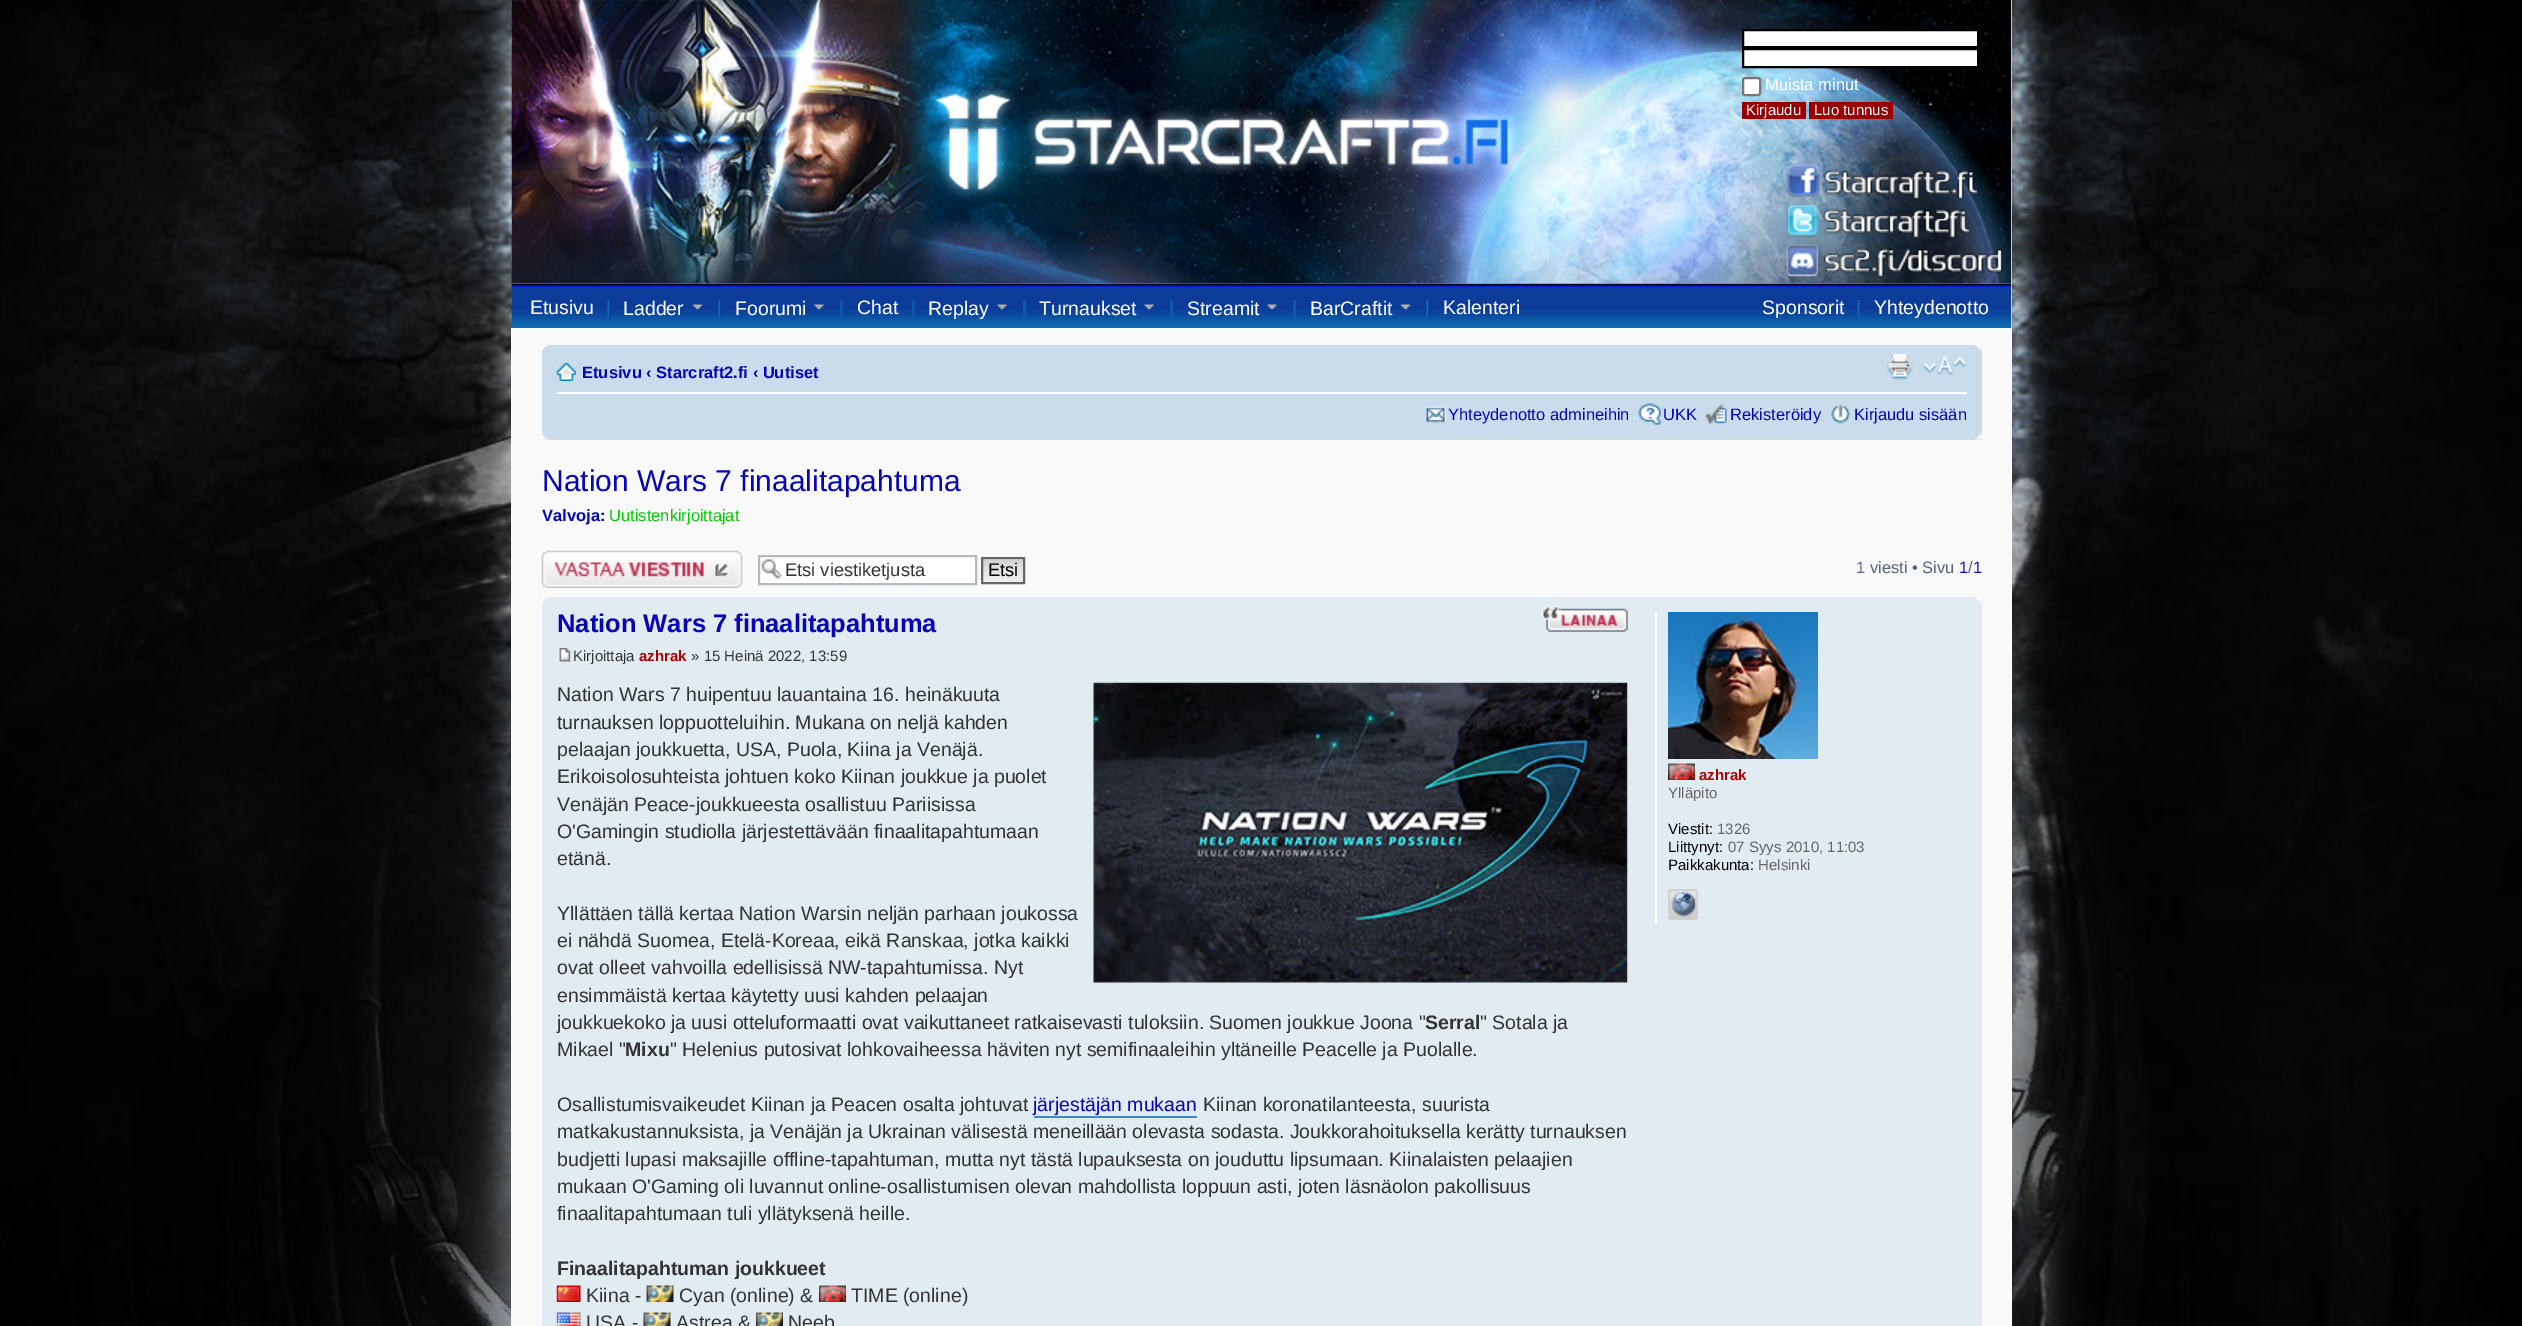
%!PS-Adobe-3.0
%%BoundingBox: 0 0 2522 1326
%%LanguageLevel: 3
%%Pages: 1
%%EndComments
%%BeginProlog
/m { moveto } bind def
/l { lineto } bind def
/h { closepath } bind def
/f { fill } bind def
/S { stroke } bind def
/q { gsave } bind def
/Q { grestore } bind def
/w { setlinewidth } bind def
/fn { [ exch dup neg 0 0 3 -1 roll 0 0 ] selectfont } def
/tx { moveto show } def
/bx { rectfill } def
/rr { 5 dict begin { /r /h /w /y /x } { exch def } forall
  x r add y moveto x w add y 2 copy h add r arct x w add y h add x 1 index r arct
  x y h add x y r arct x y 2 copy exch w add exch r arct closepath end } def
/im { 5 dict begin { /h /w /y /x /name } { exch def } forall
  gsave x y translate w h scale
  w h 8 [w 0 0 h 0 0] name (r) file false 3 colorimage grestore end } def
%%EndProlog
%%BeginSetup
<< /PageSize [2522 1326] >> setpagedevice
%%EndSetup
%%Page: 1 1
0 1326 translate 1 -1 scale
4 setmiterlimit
1 setgray
0 0 2522 1326 bx
(image0.raw) 0 0 2522 1326 im
512 0 1500 1326 bx
(image2.raw) 511 283 1501 46 im
(image1.raw) 511 0 1501 284 im
1743 30 m 1978 30 l 1978 47 l 1743 47 l h q f Q
0 setgray
2 w
S
1 setgray
1743 49 m 1978 49 l 1978 67 l 1743 67 l h q f Q
0 setgray
S
1 setgray
1743 78 17 17 2 rr q f Q
0.463 setgray
S
/LiberationSans-Regular 16.5 fn
1 setgray
(Muista minut) 1765 90 tx
0.6 0 0 setrgbcolor
1742 102 64 17 bx
/LiberationSans-Regular 15 fn
1 setgray
(Kirjaudu) 1746 115 tx
0.6 0 0 setrgbcolor
1809 102 84 17 bx
1 setgray
(Luo tunnus) 1814 115 tx
/LiberationSans-Regular 19.5 fn
(Etusivu) 530 314 tx
(image3.raw) 607 300 4 18 im
(Ladder) 623 315 tx
(image4.raw) 692 304 11 6 im
(image3.raw) 718 300 4 18 im
(Foorumi) 735 315 tx
(image5.raw) 814 304 10 6 im
0.043 0.341 0.651 setrgbcolor
840 300 3 18 bx
1 setgray
(Chat) 857 314 tx
0.043 0.341 0.651 setrgbcolor
912 300 3 18 bx
1 setgray
(Replay) 928 315 tx
(image5.raw) 997 304 10 6 im
0.043 0.353 0.659 setrgbcolor
1023 300 3 18 bx
1 setgray
(Turnaukset) 1039 315 tx
(image6.raw) 1144 304 10 6 im
0.043 0.353 0.659 setrgbcolor
1170 300 3 18 bx
1 setgray
(Streamit) 1187 315 tx
(image5.raw) 1267 304 10 6 im
0.043 0.353 0.659 setrgbcolor
1293 300 3 18 bx
1 setgray
(BarCraftit) 1310 315 tx
(image4.raw) 1400 304 11 6 im
(image3.raw) 1426 300 4 18 im
(Kalenteri) 1443 314 tx
(Sponsorit) 1762 314 tx
0.043 0.353 0.659 setrgbcolor
1857 300 3 18 bx
1 setgray
(Yhteydenotto) 1874 314 tx
0.976 setgray
511 328 1500 998 bx
0.792 0.863 0.922 setrgbcolor
542 345 1440 95 bx
(image7.raw) 542 345 7 8 im
(image8.raw) 1974 345 8 8 im
1 setgray
557 392 1410 2 bx
(image9.raw) 556 363 20 18 im
/LiberationSans-Bold 16.5 fn
0.024 0.024 0.718 setrgbcolor
(Etusivu ‹ Starcraft2.fi ‹ Uutiset) 582 378 tx
(image10.raw) 1887 353 26 27 im
(image11.raw) 1923 356 44 20 im
(image12.raw) 1426 406 21 18 im
/LiberationSans-Regular 16.5 fn
(Yhteydenotto admineihin) 1448 420 tx
(image13.raw) 1638 403 24 22 im
(UKK) 1663 420 tx
(image14.raw) 1705 404 22 21 im
(Rekisteröidy) 1730 420 tx
(image15.raw) 1831 404 19 20 im
(Kirjaudu sisään) 1854 420 tx
(image16.raw) 542 432 7 8 im
(image17.raw) 1974 432 8 8 im
/LiberationSans-Regular 30 fn
(Nation Wars 7 finaalitapahtuma) 542 491 tx
/LiberationSans-Bold 16.5 fn
(Valvoja:) 542 521 tx
/LiberationSans-Regular 16.5 fn
0 0.8 0 setrgbcolor
(Uutistenkirjoittajat) 609 521 tx
(image18.raw) 541 550 202 38 im
1 setgray
760 557 215 26 bx
(image19.raw) 761 559 21 20 im
0.706 0.729 0.753 setrgbcolor
759 556 217 28 rectstroke
/LiberationSans-Regular 18.25 fn
0.2 setgray
(Etsi viestiketjusta) 785 576 tx
(image20.raw) 983 559 40 23 im
0.4 setgray
982 558 42 25 rectstroke
0 setgray
(Etsi) 988 576 tx
/LiberationSans-Regular 16.5 fn
0.325 0.392 0.51 setrgbcolor
(1 viesti • Sivu) 1856 573 tx
0.024 0.024 0.718 setrgbcolor
(1 1) 1959 573 tx
0.325 0.392 0.51 setrgbcolor
(/) 1968 573 tx
0.882 0.922 0.949 setrgbcolor
542 597 1440 729 bx
(image21.raw) 542 597 7 7 im
(image22.raw) 1974 597 8 7 im
/LiberationSans-Bold 25.5 fn
0.024 0.024 0.718 setrgbcolor
(Nation Wars 7 finaalitapahtuma) 557 632 tx
(image23.raw) 1542 606 86 26 im
(image24.raw) 1542 606 86 26 im
(image25.raw) 559 648 12 14 im
/LiberationSans-Regular 15 fn
0.2 setgray
(Kirjoittaja) 573 661 tx
/LiberationSans-Bold 15 fn
0.667 0 0 setrgbcolor
(azhrak) 639 661 tx
/LiberationSans-Regular 15 fn
0.2 setgray
(» 15 Heinä 2022, 13:59) 691 661 tx
/LiberationSans-Regular 19.5 fn
(Nation Wars 7 huipentuu lauantaina 16. heinäkuuta) 557 701 tx
(image26.raw) 1093 682 535 301 im
(turnauksen loppuotteluihin. Mukana on neljä kahden) 557 729 tx
(pelaajan joukkuetta, USA, Puola, Kiina ja Venäjä.) 557 756 tx
(Erikoisolosuhteista johtuen koko Kiinan joukkue ja puolet) 557 783 tx
(Venäjän Peace-joukkueesta osallistuu Pariisissa) 557 811 tx
(O'Gamingin studiolla järjestettävään finaalitapahtumaan) 557 838 tx
(etänä.) 557 865 tx
(Yllättäen tällä kertaa Nation Warsin neljän parhaan joukossa) 557 920 tx
(ei nähdä Suomea, Etelä-Koreaa, eikä Ranskaa, jotka kaikki) 557 947 tx
(ovat olleet vahvoilla edellisissä NW-tapahtumissa. Nyt) 557 974 tx
(ensimmäistä kertaa käytetty uusi kahden pelaajan) 557 1002 tx
(joukkuekoko ja uusi otteluformaatti ovat vaikuttaneet ratkaisevasti tuloksiin. Suomen joukkue Joona ") 557 1029 tx
/LiberationSans-Bold 19.5 fn
(Serral) 1425 1029 tx
/LiberationSans-Regular 19.5 fn
(" Sotala ja) 1480 1029 tx
(Mikael ") 557 1056 tx
/LiberationSans-Bold 19.5 fn
(Mixu) 625 1056 tx
/LiberationSans-Regular 19.5 fn
(" Helenius putosivat lohkovaiheessa häviten nyt semifinaaleihin yltäneille Peacelle ja Puolalle.) 670 1056 tx
(Osallistumisvaikeudet Kiinan ja Peacen osalta johtuvat) 557 1111 tx
0.024 0.024 0.718 setrgbcolor
(järjestäjän mukaan) 1033 1111 tx
0.212 0.541 0.824 setrgbcolor
1034 1116 163 2 bx
0.2 setgray
(Kiinan koronatilanteesta, suurista) 1203 1111 tx
(matkakustannuksista, ja Venäjän ja Ukrainan välisestä meneillään olevasta sodasta. Joukkorahoituksella kerätty turnauksen) 557 1138 tx
(budjetti lupasi maksajille offline-tapahtuman, mutta nyt tästä lupauksesta on jouduttu lipsumaan. Kiinalaisten pelaajien) 557 1166 tx
(mukaan O'Gaming oli luvannut online-osallistumisen olevan mahdollista loppuun asti, joten läsnäolon pakollisuus) 557 1193 tx
(finaalitapahtumaan tuli yllätyksenä heille.) 557 1220 tx
/LiberationSans-Bold 19.5 fn
(Finaalitapahtuman joukkueet) 557 1275 tx
(image27.raw) 556 1285 25 17 im
/LiberationSans-Regular 19.5 fn
(Kiina -) 586 1302 tx
(image28.raw) 646 1285 28 17 im
(Cyan \(online\) &) 679 1302 tx
(image29.raw) 819 1285 27 17 im
(TIME \(online\)) 851 1302 tx
(image30.raw) 556 1312 25 14 im
(USA -) 586 1329 tx
(image31.raw) 643 1312 28 14 im
(Astrea &) 676 1329 tx
(image32.raw) 756 1312 27 14 im
(Neeb) 788 1329 tx
1 setgray
1655 612 2 312 bx
(image33.raw) 1668 612 150 147 im
(image29.raw) 1668 763 27 17 im
/LiberationSans-Bold 15 fn
0.667 0 0 setrgbcolor
(azhrak) 1699 780 tx
/LiberationSans-Regular 15 fn
0.4 setgray
(Ylläpito) 1668 798 tx
0 setgray
(Viestit:) 1668 834 tx
0.4 setgray
(1326) 1717 834 tx
0 setgray
(Liittynyt:) 1668 852 tx
0.4 setgray
(07 Syys 2010, 11:03) 1728 852 tx
0 setgray
(Paikkakunta:) 1668 870 tx
0.4 setgray
(Helsinki) 1758 870 tx
(image34.raw) 1668 889 30 31 im
(image35.raw) 1668 889 30 31 im
showpage
%%EOF
